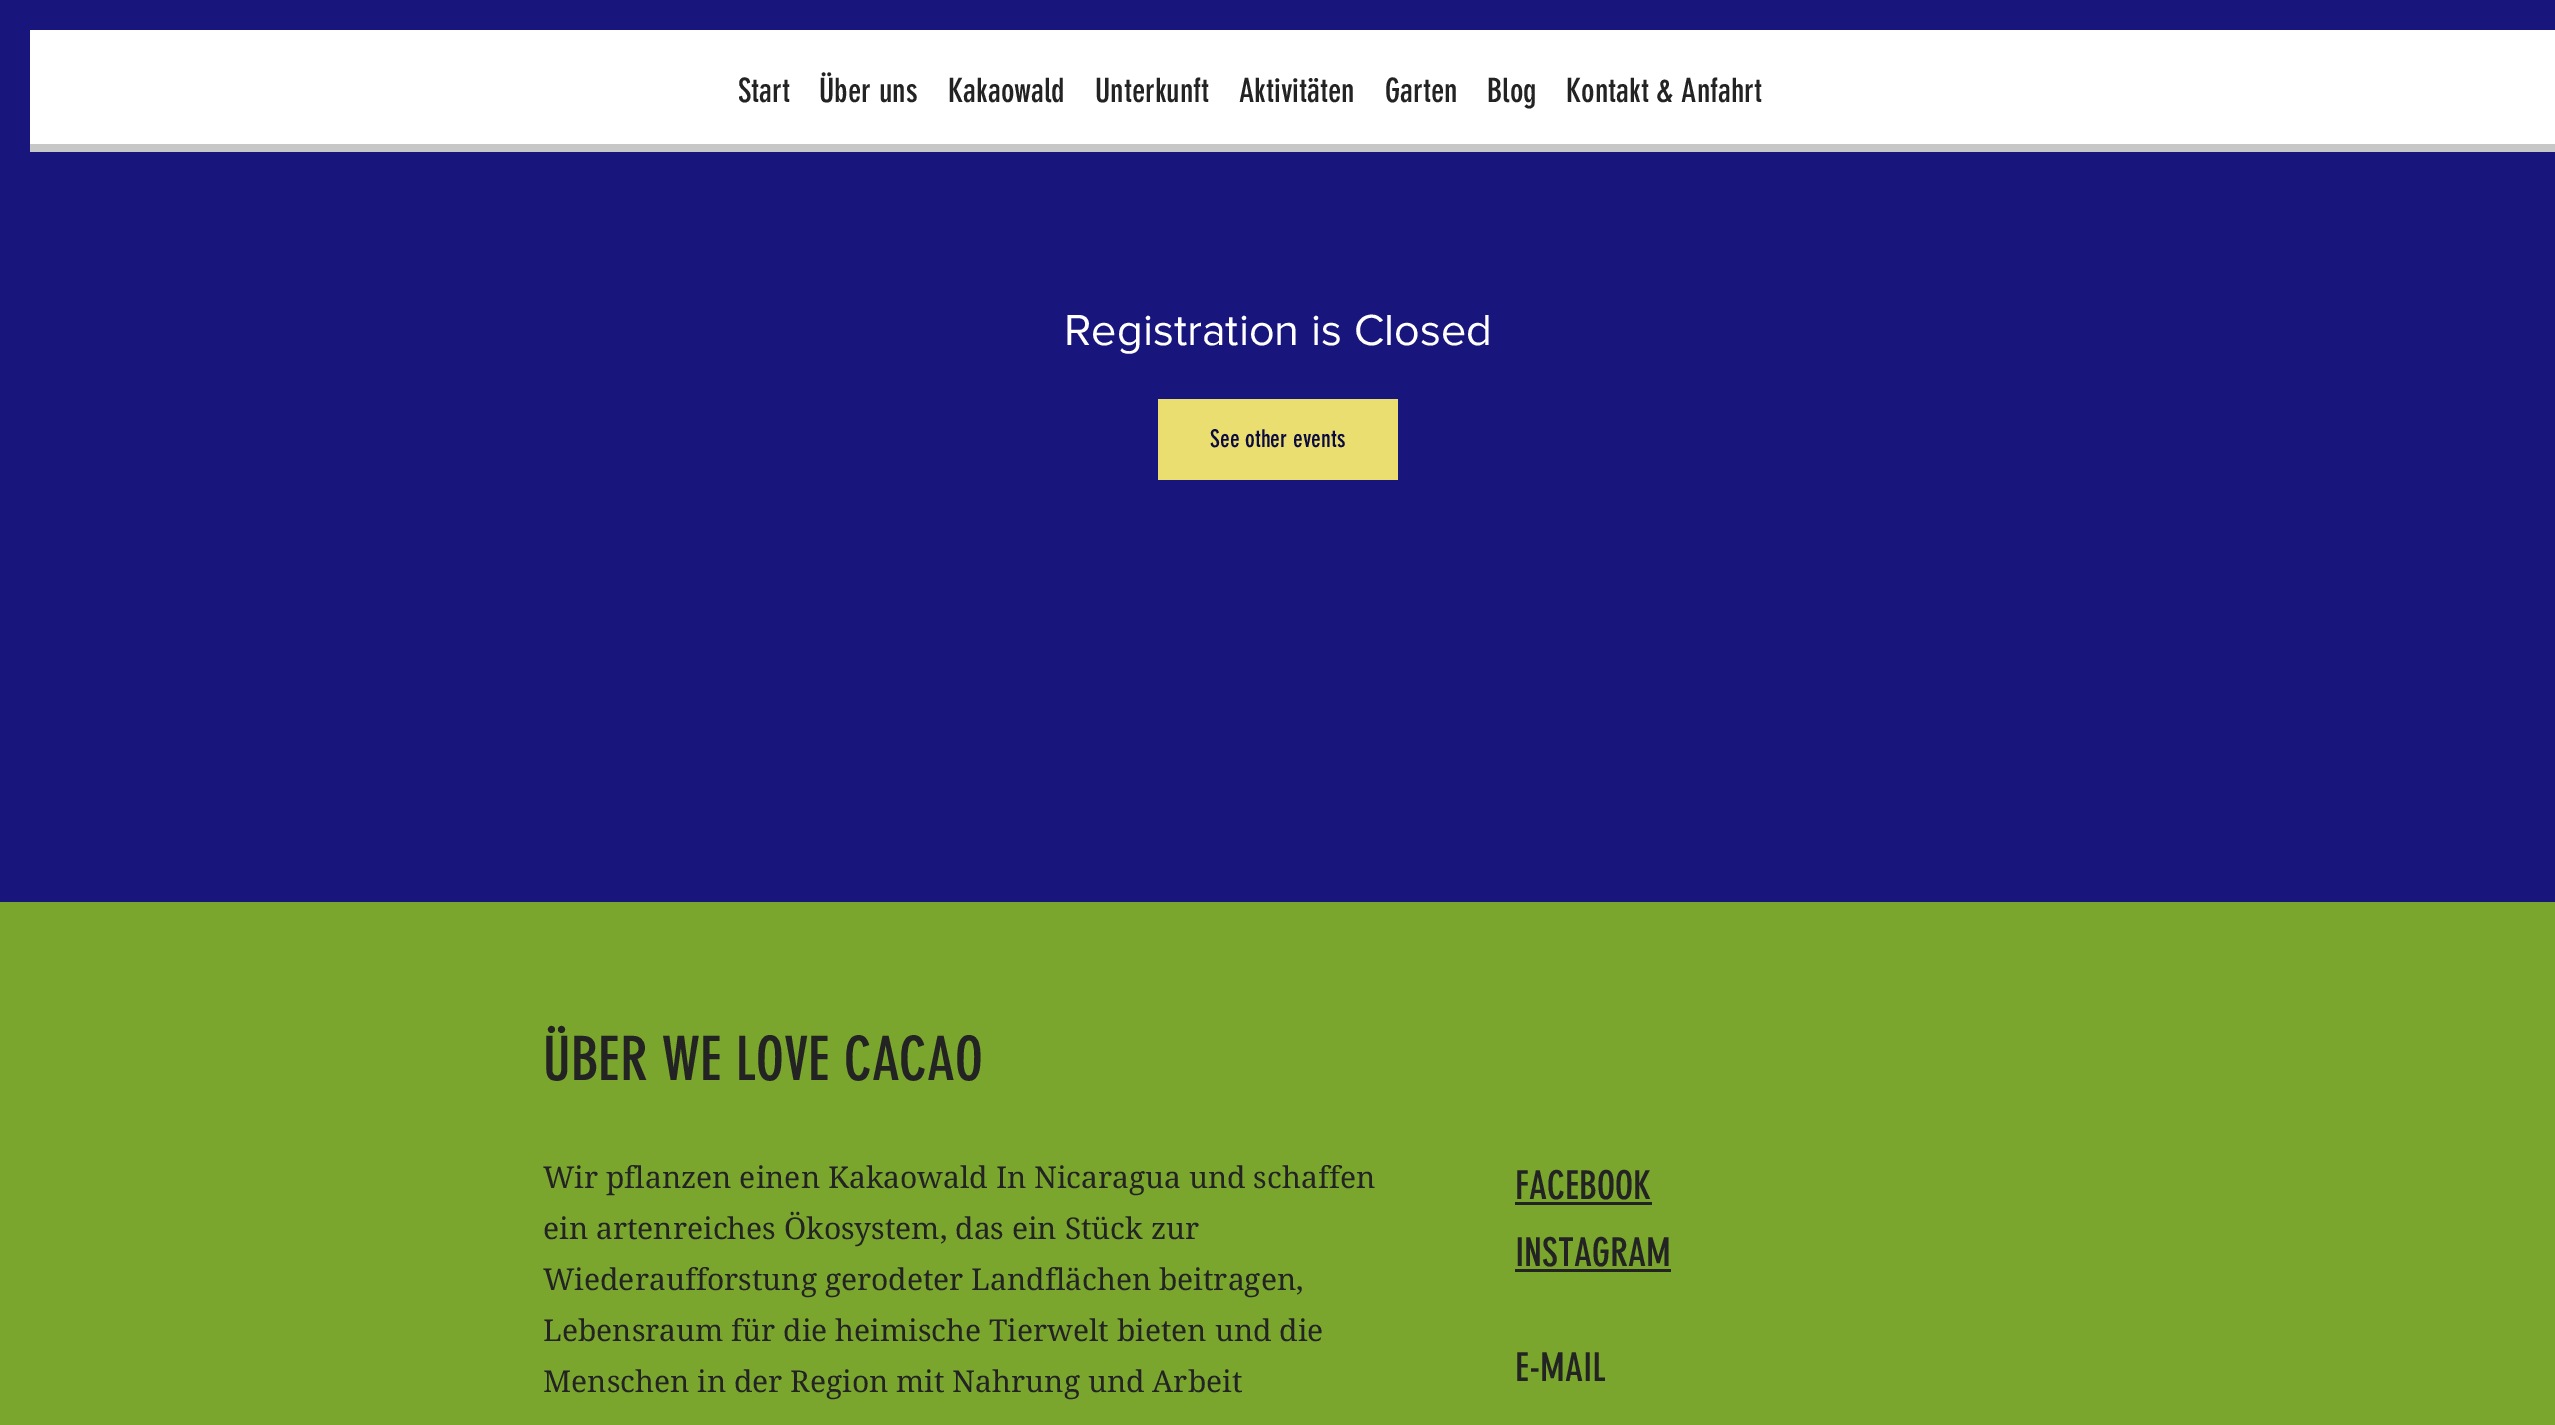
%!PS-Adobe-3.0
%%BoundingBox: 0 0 2555 1425
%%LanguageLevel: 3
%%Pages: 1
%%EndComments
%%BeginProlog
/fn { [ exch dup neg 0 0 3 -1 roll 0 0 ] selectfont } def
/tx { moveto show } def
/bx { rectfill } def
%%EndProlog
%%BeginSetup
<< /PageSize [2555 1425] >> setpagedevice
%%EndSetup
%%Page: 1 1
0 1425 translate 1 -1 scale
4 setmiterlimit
0.094 0.082 0.486 setrgbcolor
0 0 2555 1425 bx
1 setgray
30 30 2525 114 bx
0.78 setgray
30 144 2525 8 bx
/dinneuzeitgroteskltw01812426-Regular 33 fn
0.137 setgray
(Start) 738 102 tx
(Über uns) 819 102 tx
(Kakaowald) 948 102 tx
(Unterkunft) 1095 102 tx
(Aktivitäten) 1239 102 tx
(Garten) 1385 102 tx
(Blog) 1487 102 tx
(Kontakt & Anfahrt) 1566 102 tx
/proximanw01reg-Regular 45 fn
1 setgray
(Registration is Closed) 1064 345 tx
0.918 0.871 0.443 setrgbcolor
1158 399 240 81 bx
/dinneuzeitgroteskltw01812426-Regular 24 fn
0.047 0.043 0.243 setrgbcolor
(See other events) 1210 447 tx
0.478 0.651 0.18 setrgbcolor
0 902 2555 523 bx
/dinneuzeitgroteskltw01812426-Regular 60 fn
0.137 setgray
(ÜBER WE LOVE CACAO) 543 1080 tx
/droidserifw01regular-Regular 30 fn
(Wir pflanzen einen Kakaowald In Nicaragua und schaffen) 543 1188 tx
(ein artenreiches Ökosystem, das ein Stück zur) 543 1239 tx
(Wiederaufforstung gerodeter Landflächen beitragen,) 543 1290 tx
(Lebensraum für die heimische Tierwelt bieten und die) 543 1341 tx
(Menschen in der Region mit Nahrung und Arbeit) 543 1392 tx
/dinneuzeitgroteskltw01812426-Regular 39 fn
(FACEBOOK) 1515 1199 tx
1515 1202 137 3 bx
(INSTAGRAM) 1515 1266 tx
1515 1269 156 3 bx
(E-MAIL) 1515 1381 tx
showpage
%%EOF
